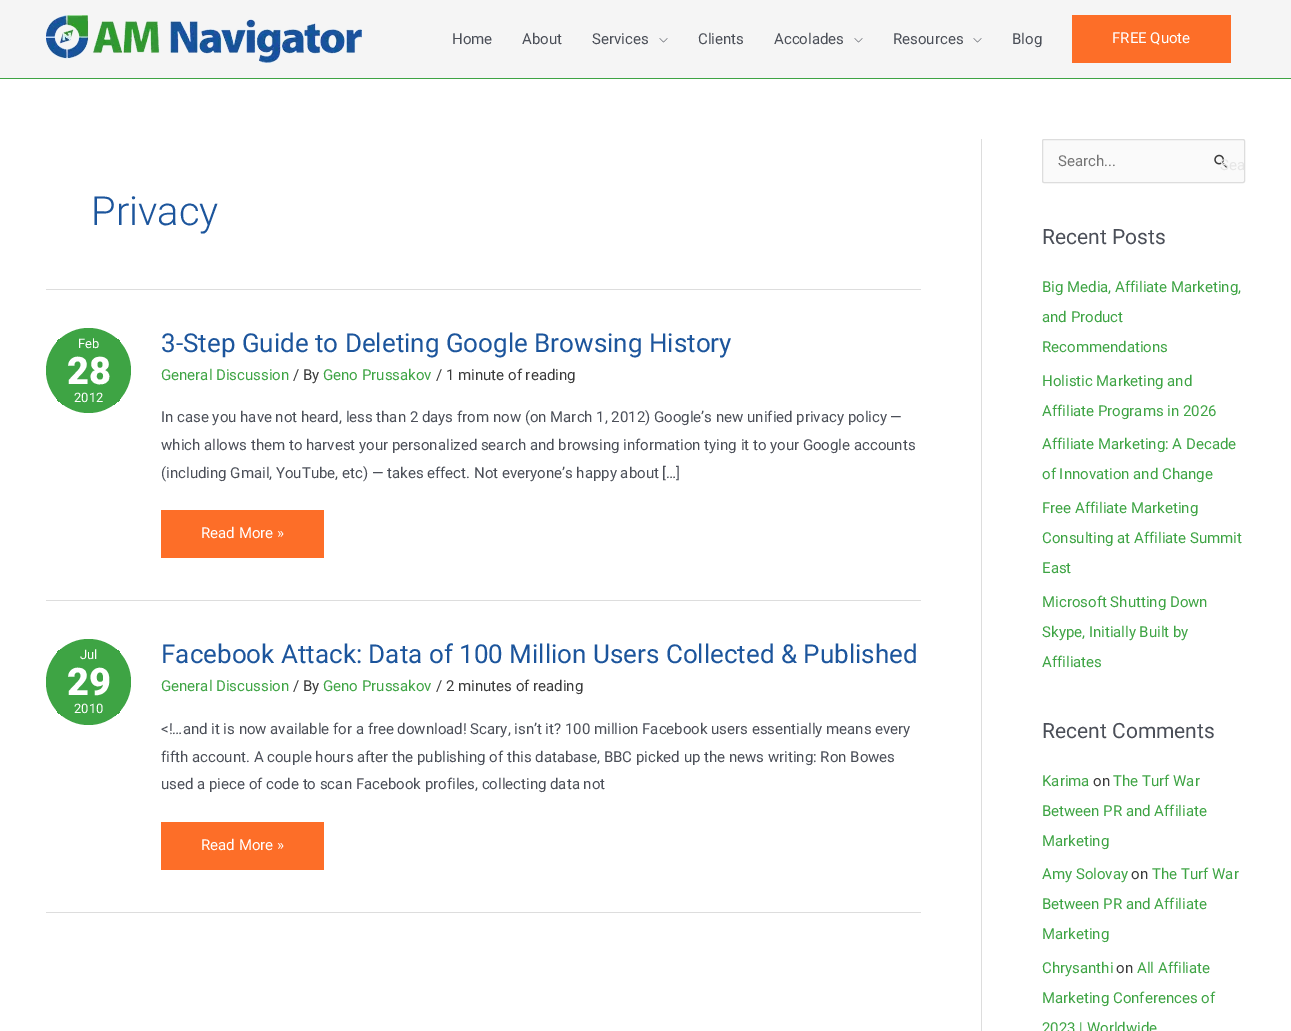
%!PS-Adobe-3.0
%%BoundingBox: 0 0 1291 1031
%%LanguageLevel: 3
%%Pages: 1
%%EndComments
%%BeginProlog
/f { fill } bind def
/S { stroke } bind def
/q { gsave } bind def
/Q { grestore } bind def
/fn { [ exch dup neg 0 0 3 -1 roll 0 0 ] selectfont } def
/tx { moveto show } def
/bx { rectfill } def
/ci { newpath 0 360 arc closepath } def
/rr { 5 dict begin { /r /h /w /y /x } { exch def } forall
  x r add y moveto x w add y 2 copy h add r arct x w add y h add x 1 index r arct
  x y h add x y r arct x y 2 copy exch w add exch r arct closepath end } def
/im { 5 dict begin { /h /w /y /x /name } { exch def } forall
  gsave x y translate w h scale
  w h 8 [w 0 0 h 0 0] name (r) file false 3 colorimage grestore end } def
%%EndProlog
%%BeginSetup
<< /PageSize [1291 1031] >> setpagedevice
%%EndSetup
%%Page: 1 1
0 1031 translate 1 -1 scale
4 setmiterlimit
1 setgray
0 0 1291 1031 bx
0.961 setgray
0 0 1291 78 bx
0.243 0.643 0.267 setrgbcolor
0 78 1291 1 bx
(image0.raw) 46 15 316 48 im
/Roboto-Regular 15 fn
0.294 0.31 0.345 setrgbcolor
(Home) 452 44 tx
(About) 522 44 tx
(Services) 592 44 tx
(image1.raw) 659 38 9 5 im
(Clients) 698 44 tx
(Accolades) 774 44 tx
(image1.raw) 854 38 9 5 im
(Resources) 893 44 tx
(image1.raw) 973 38 9 5 im
(Blog) 1012 44 tx
0.992 0.431 0.157 setrgbcolor
1072 15 159 48 bx
1 setgray
(FREE Quote) 1112 43 tx
0.867 setgray
46 289 875 1 bx
/Roboto-Light 40 fn
0.11 0.333 0.612 setrgbcolor
(Privacy) 91 225 tx
0.867 setgray
46 600 875 1 bx
0.243 0.643 0.267 setrgbcolor
88.5 370.5 42.5 ci f
q
46 328 85 85 42.5 rr clip newpath
56 338 65 13 bx
Q
/Roboto-Regular 13 fn
1 setgray
(Feb) 78 348 tx
/Roboto-Black 38 fn
(28) 67 384 tx
q
46 328 85 85 42.5 rr clip newpath
0.243 0.643 0.267 setrgbcolor
56 392 65 13 bx
Q
/Roboto-Regular 13 fn
(2012) 74 402 tx
/Roboto-Regular 26 fn
0.11 0.333 0.612 setrgbcolor
(3-Step Guide to Deleting Google Browsing History) 161 352 tx
/Roboto-Regular 15 fn
0.243 0.643 0.267 setrgbcolor
(General Discussion) 161 380 tx
0.227 setgray
(/ By) 293 380 tx
0.243 0.643 0.267 setrgbcolor
(Geno Prussakov) 323 380 tx
0.227 setgray
(/ 1 minute of reading) 436 380 tx
0.294 0.31 0.345 setrgbcolor
(In case you have not heard, less than 2 days from now \(on March 1, 2012\) Google’s new unified privacy policy —) 161 422 tx
(which allows them to harvest your personalized search and browsing information tying it to your Google accounts) 161 450 tx
(\(including Gmail, YouTube, etc\) — takes effect. Not everyone’s happy about […]) 161 478 tx
0.992 0.431 0.157 setrgbcolor
161 510 163 48 bx
1 setgray
(Read More ») 201 538 tx
0.867 setgray
46 912 875 1 bx
0.243 0.643 0.267 setrgbcolor
46 639 85 86 42.5 rr f
q
46 639 85 86 42.5 rr clip newpath
56 649 65 13 bx
Q
/Roboto-Regular 13 fn
1 setgray
(Jul) 80 659 tx
/Roboto-Black 38 fn
(29) 67 695 tx
q
46 639 85 86 42.5 rr clip newpath
0.243 0.643 0.267 setrgbcolor
56 703 65 13 bx
Q
/Roboto-Regular 13 fn
(2010) 74 713 tx
/Roboto-Regular 26 fn
0.11 0.333 0.612 setrgbcolor
(Facebook Attack: Data of 100 Million Users Collected & Published) 161 663 tx
/Roboto-Regular 15 fn
0.243 0.643 0.267 setrgbcolor
(General Discussion) 161 691 tx
0.227 setgray
(/ By) 293 691 tx
0.243 0.643 0.267 setrgbcolor
(Geno Prussakov) 323 691 tx
0.227 setgray
(/ 2 minutes of reading) 436 691 tx
0.294 0.31 0.345 setrgbcolor
(<!…and it is now available for a free download! Scary, isn’t it? 100 million Facebook users essentially means every) 161 734 tx
(fifth account. A couple hours after the publishing of this database, BBC picked up the news writing: Ron Bowes) 161 762 tx
(used a piece of code to scan Facebook profiles, collecting data not) 161 789 tx
0.992 0.431 0.157 setrgbcolor
161 822 163 48 bx
1 setgray
(Read More ») 201 850 tx
0.867 setgray
981 139 1 892 bx
0.98 setgray
1042.5 139.5 202 43 1.5 rr q f Q
0.867 setgray
S
0.459 setgray
(Search...) 1058 166 tx
(image2.raw) 1214 154 14 14 im
0.902 setgray
(Sea) 1220 170 tx
/Roboto-Regular 21 fn
0.294 0.31 0.345 setrgbcolor
(Recent Posts) 1042 244 tx
/Roboto-Regular 15 fn
0.243 0.643 0.267 setrgbcolor
(Big Media, Affiliate Marketing,) 1042 292 tx
(and Product) 1042 322 tx
(Recommendations) 1042 352 tx
(Holistic Marketing and) 1042 386 tx
(Affiliate Programs in 2026) 1042 416 tx
(Affiliate Marketing: A Decade) 1042 449 tx
(of Innovation and Change) 1042 479 tx
(Free Affiliate Marketing) 1042 513 tx
(Consulting at Affiliate Summit) 1042 543 tx
(East) 1042 573 tx
(Microsoft Shutting Down) 1042 607 tx
(Skype, Initially Built by) 1042 637 tx
(Affiliates) 1042 667 tx
/Roboto-Regular 21 fn
0.294 0.31 0.345 setrgbcolor
(Recent Comments) 1042 738 tx
/Roboto-Regular 15 fn
0.243 0.643 0.267 setrgbcolor
(Karima) 1042 786 tx
0.227 setgray
(on) 1093 786 tx
0.243 0.643 0.267 setrgbcolor
(The Turf War) 1113 786 tx
(Between PR and Affiliate) 1042 816 tx
(Marketing) 1042 846 tx
(Amy Solovay) 1042 879 tx
0.227 setgray
(on) 1131 879 tx
0.243 0.643 0.267 setrgbcolor
(The Turf War) 1152 879 tx
(Between PR and Affiliate) 1042 909 tx
(Marketing) 1042 939 tx
(Chrysanthi) 1042 973 tx
0.227 setgray
(on) 1116 973 tx
0.243 0.643 0.267 setrgbcolor
(All Affiliate) 1137 973 tx
(Marketing Conferences of) 1042 1003 tx
(2023 | Worldwide) 1042 1033 tx
showpage
%%EOF
